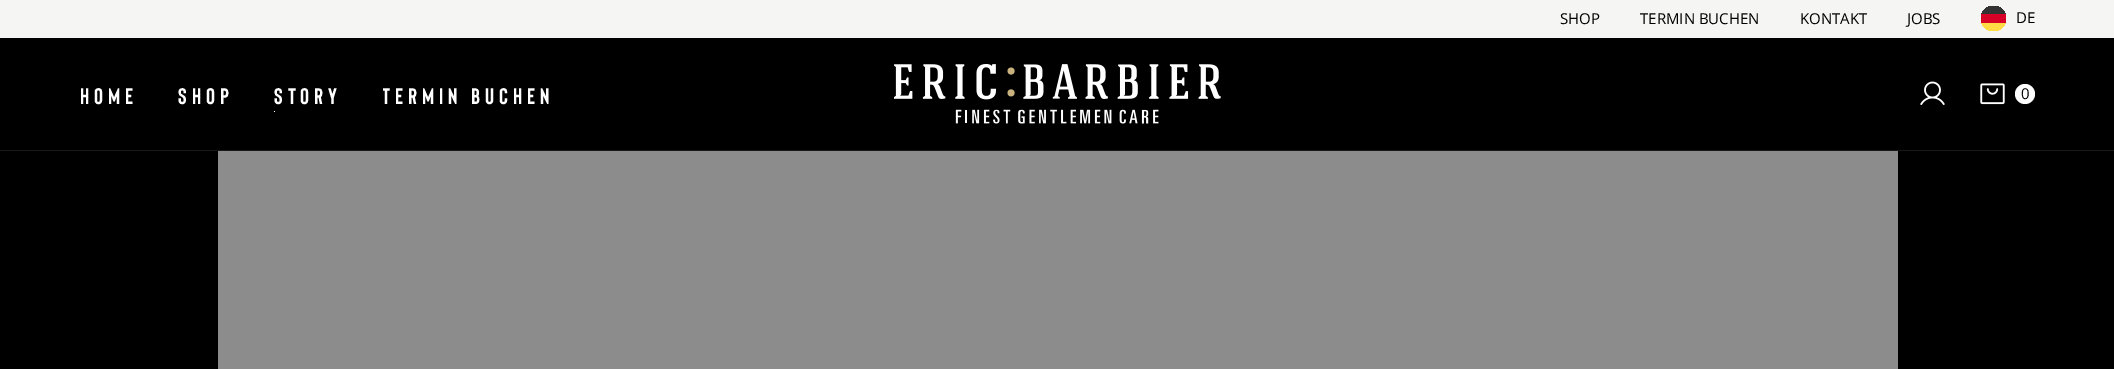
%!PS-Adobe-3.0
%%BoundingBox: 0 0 2114 369
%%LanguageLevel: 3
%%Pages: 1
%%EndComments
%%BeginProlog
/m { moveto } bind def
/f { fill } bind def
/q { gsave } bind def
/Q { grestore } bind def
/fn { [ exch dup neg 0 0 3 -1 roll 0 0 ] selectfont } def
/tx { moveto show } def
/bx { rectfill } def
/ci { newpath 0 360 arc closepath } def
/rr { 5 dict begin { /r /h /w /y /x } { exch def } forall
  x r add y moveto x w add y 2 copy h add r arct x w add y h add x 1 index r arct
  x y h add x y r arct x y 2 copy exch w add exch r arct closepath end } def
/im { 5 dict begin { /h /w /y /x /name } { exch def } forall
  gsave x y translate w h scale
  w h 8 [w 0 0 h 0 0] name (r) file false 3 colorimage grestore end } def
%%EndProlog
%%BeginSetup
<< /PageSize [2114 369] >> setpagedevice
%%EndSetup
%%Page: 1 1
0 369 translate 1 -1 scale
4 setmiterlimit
0 setgray
0 0 2114 369 bx
0.961 0.961 0.957 setrgbcolor
0 0 2114 38 bx
/OpenSans-Regular 15 fn
0 setgray
(SHOP) 1560 24 tx
(TERMIN BUCHEN) 1640 24 tx
(KONTAKT) 1800 24 tx
(JOBS) 1907 24 tx
q
1981 6 25 25 12.5 rr clip newpath
0.847 0 0.153 setrgbcolor
1981 13 25 12 bx
1 0.855 0.267 setrgbcolor
1981 23 25 8 bx
0.2 setgray
1981 6 25 8 bx
Q
(DE) 2016 23 tx
0.102 setgray
0 150 2114 1 bx
/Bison-Bold 22.5 fn
1 setgray
80 104 m 5 0 (HOME) ashow
178 104 m 5 0 (SHOP) ashow
274 104 m 5 0 (STORY) ashow
274 111 1 1 bx
q
383 78 172 35 rectclip
382 104 m 5 0 (TERMIN BUCHEN) ashow
Q
(image0.raw) 894 64 327 60 im
(image1.raw) 1920 81 25 24 im
(image2.raw) 1980 83 25 22 im
2025 94 10 ci f
/OpenSans-Regular 15 fn
0 setgray
(0) 2021 99 tx
0.549 setgray
218 151 1680 218 bx
showpage
%%EOF
